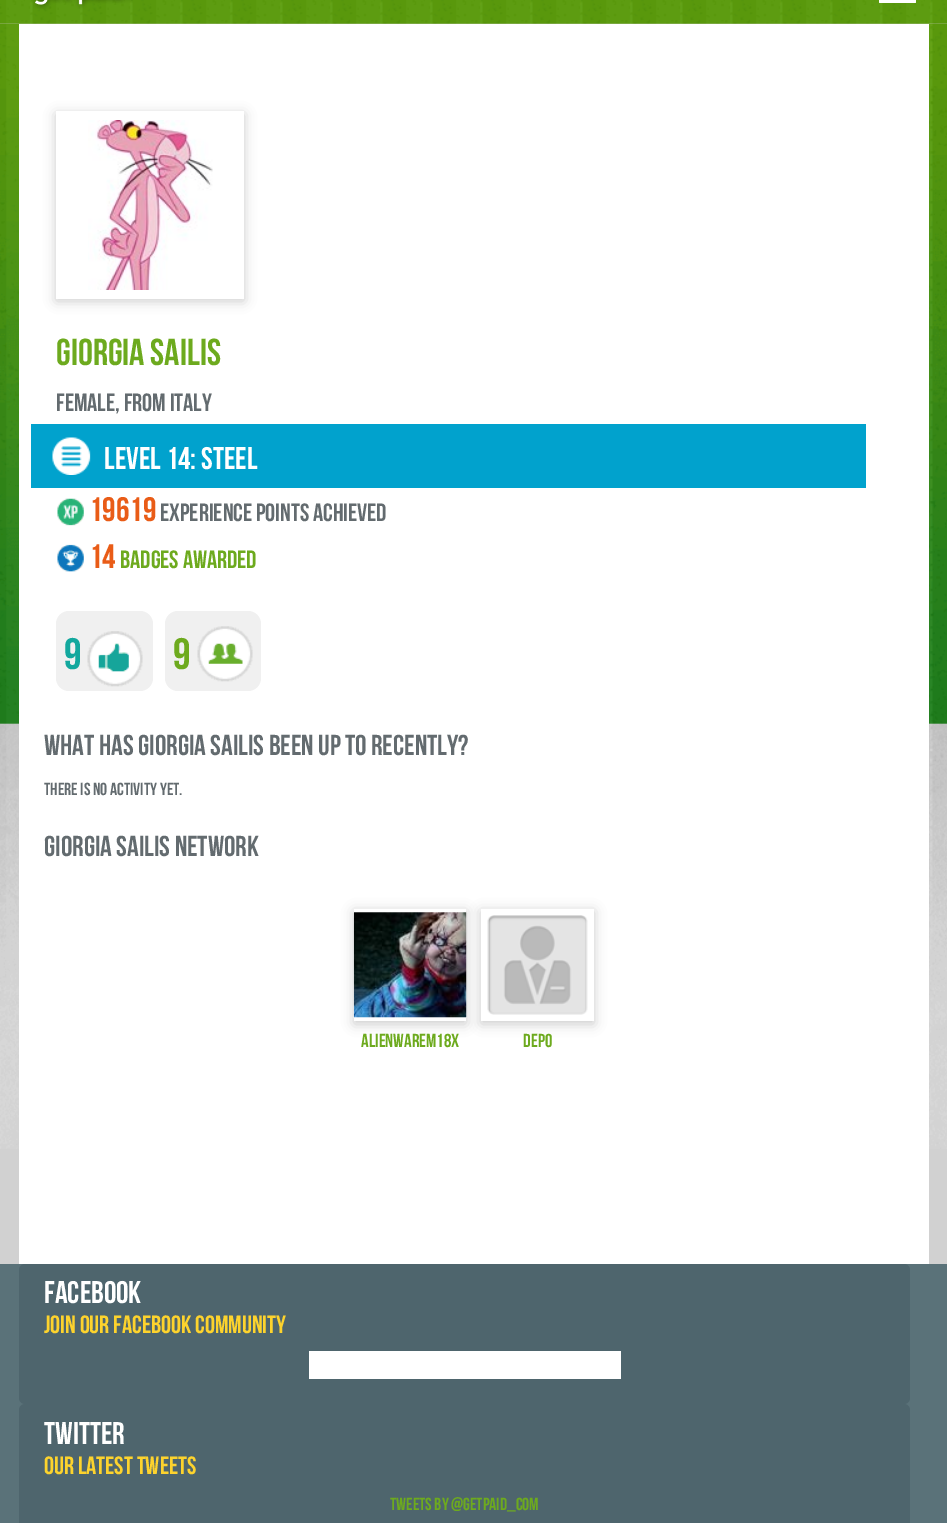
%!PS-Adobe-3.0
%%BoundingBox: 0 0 947 1523
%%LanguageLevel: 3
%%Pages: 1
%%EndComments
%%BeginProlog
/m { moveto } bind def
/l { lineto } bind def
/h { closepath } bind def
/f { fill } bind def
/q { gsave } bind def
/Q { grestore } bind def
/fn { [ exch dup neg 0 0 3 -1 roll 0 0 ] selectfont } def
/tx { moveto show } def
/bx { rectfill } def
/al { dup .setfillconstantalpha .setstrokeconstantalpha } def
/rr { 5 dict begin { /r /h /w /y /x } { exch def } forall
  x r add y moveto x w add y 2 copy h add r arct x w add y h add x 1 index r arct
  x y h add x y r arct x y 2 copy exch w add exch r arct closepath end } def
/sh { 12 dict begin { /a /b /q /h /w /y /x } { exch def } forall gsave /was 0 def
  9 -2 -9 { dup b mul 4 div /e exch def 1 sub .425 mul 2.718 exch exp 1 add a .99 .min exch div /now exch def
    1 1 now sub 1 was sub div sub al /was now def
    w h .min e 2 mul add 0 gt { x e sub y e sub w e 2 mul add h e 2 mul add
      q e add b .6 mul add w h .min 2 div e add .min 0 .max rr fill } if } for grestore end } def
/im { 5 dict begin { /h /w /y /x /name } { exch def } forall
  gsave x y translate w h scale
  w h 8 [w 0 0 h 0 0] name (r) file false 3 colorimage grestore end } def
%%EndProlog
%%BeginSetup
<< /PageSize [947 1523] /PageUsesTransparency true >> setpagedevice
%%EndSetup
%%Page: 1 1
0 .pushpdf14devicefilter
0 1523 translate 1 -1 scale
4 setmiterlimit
1 setgray
0 0 947 1523 bx
0.82 setgray
0 1148 947 116 bx
(image2.raw) 0 23 947 1126 im
(image0.raw) 0 0 947 24 im
(image1.raw) 33 0 100 9 im
1 setgray
879 -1 37 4 1 rr f
19 24 910 1240 bx
0 setgray
56 114 188 187 0 6 0.2 sh
1 setgray
56 111 188 188 bx
(image3.raw) 88 120 125 170 im
/BebasNeue-Regular 37.5 fn
0.427 0.667 0.118 setrgbcolor
(Giorgia Sailis) 56 365 tx
/BebasNeue-Regular 25 fn
0.388 0.42 0.435 setrgbcolor
(female, FROM Italy) 56 411 tx
0.004 0.635 0.804 setrgbcolor
31 424 835 64 bx
(image4.raw) 52 437 39 38 im
/BebasNeue-Regular 31.25 fn
1 setgray
(LEVEL 14: steel) 104 469 tx
(image5.raw) 57 498 27 28 im
/BebasNeue-Regular 34 fn
0.914 0.361 0.09 setrgbcolor
(19619) 89 521 tx
/BebasNeue-Regular 25 fn
0.388 0.42 0.435 setrgbcolor
(experience points ACHIEVED) 160 521 tx
(image6.raw) 57 544 27 28 im
/BebasNeue-Regular 34 fn
0.914 0.361 0.09 setrgbcolor
(14) 89 568 tx
/BebasNeue-Regular 25 fn
0.427 0.667 0.118 setrgbcolor
(BADGES AWARDED) 120 568 tx
0.941 setgray
56 611 97 80 13 rr f
/BebasNeue-Regular 44 fn
0.075 0.659 0.62 setrgbcolor
(9) 64 669 tx
(image7.raw) 87 631 56 56 im
0.941 setgray
165 611 96 80 13 rr f
0.427 0.667 0.118 setrgbcolor
(9) 173 669 tx
(image8.raw) 197 626 56 56 im
/BebasNeue-Regular 28.75 fn
0.388 0.42 0.435 setrgbcolor
(what has Giorgia Sailis been up to RECENTLY?) 44 755 tx
/BebasNeue-Regular 17.5 fn
(There is no activity yet.) 44 795 tx
/BebasNeue-Regular 28.75 fn
(Giorgia Sailis Network) 44 856 tx
q
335 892 m 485 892 l 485 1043 l 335 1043 l h 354 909 m 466 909 l 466 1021 l 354 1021 l h eoclip newpath
0 setgray
354 911 112 113 0 6 0.2 sh
Q
(image9.raw) 353 912 114 106 im
/BebasNeue-Regular 18.75 fn
0.427 0.667 0.118 setrgbcolor
(Alienwarem18x) 361 1047 tx
0 setgray
481 911 113 113 0 6 0.2 sh
1 setgray
481 909 113 112 bx
(image10.raw) 487 915 101 100 im
0.427 0.667 0.118 setrgbcolor
(depo) 523 1047 tx
0.353 0.447 0.475 setrgbcolor
0 1264 947 259 bx
0.306 0.396 0.427 setrgbcolor
19 1264 891 140 6 rr f
/BebasNeue-Regular 31.25 fn
1 setgray
(FACEBOOK) 44 1303 tx
/BebasNeue-Regular 25 fn
0.992 0.827 0.176 setrgbcolor
(JOIN OUR FACEBOOK COMMUNITY) 44 1333 tx
1 setgray
309 1351 312 28 bx
0.306 0.396 0.427 setrgbcolor
19 1404 891 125 6 rr f
/BebasNeue-Regular 31.25 fn
1 setgray
(TWITTER) 44 1444 tx
/BebasNeue-Regular 25 fn
0.992 0.827 0.176 setrgbcolor
(OUR LATEST TWEETS) 44 1474 tx
/BebasNeue-Regular 17.5 fn
0.427 0.667 0.118 setrgbcolor
(Tweets by @GetPaid_Com) 390 1510 tx
.poppdf14devicefilter showpage
%%EOF
